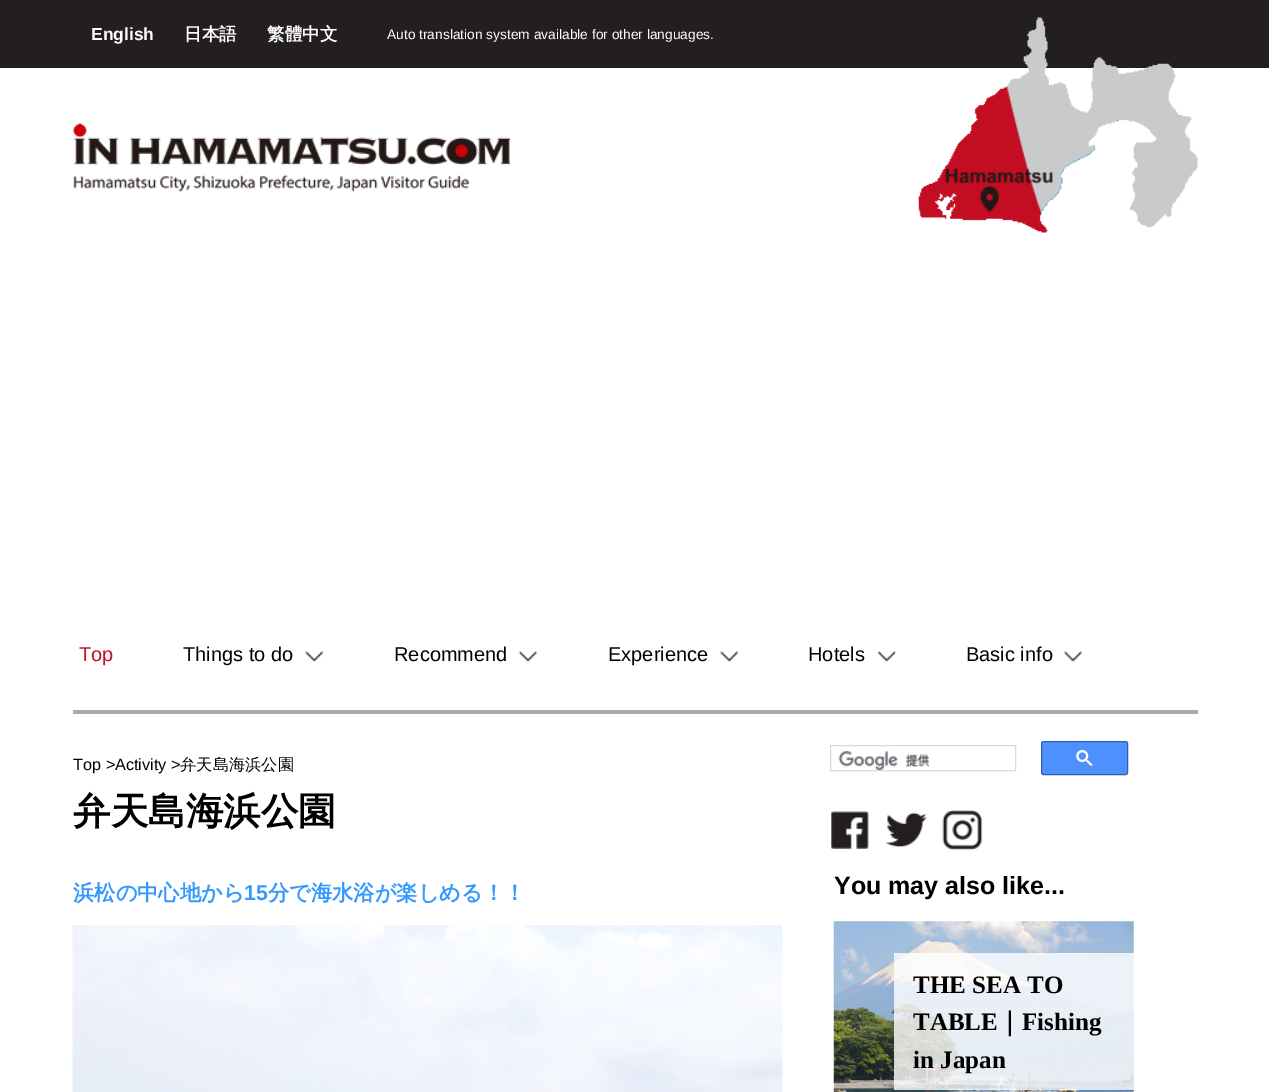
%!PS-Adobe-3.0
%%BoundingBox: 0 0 1269 1092
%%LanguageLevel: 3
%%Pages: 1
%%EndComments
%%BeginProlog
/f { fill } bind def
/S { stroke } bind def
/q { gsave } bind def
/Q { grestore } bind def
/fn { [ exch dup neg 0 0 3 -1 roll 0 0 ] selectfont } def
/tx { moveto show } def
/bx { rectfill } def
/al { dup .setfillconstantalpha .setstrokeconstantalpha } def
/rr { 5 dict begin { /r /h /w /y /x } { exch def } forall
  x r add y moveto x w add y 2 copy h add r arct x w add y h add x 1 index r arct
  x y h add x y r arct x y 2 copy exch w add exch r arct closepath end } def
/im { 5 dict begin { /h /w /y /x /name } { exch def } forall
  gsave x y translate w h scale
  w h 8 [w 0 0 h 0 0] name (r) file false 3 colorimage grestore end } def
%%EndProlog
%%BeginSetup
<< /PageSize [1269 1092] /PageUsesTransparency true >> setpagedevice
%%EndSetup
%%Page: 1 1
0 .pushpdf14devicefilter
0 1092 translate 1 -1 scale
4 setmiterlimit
1 setgray
0 0 1269 1092 bx
0.137 0.122 0.125 setrgbcolor
0 0 1269 68 bx
/LiberationSans-Bold 17.5 fn
1 setgray
(English) 91 40 tx
/WenQuanYiZenHei-Bold 17.5 fn
(日本語) 184 40 tx
(繁體中文) 267 40 tx
/LiberationSans-Regular 13.75 fn
(Auto translation system available for other languages.) 387 39 tx
0.667 setgray
73 710 1125 4 bx
(image0.raw) 72 123 438 69 im
(image1.raw) 918 17 280 216 im
/LiberationSans-Regular 20 fn
0.765 0.051 0.137 setrgbcolor
(Top) 79 661 tx
0 setgray
(Things to do) 183 661 tx
(image2.raw) 305 651 19 11 im
(Recommend) 394 661 tx
(image3.raw) 518 651 20 11 im
(Experience) 608 661 tx
(image4.raw) 720 651 19 11 im
(Hotels) 808 661 tx
(image5.raw) 877 651 19 11 im
(Basic info) 966 661 tx
(image3.raw) 1063 651 20 11 im
/LiberationSans-Regular 16.25 fn
(Top >Activity >) 73 770 tx
/WenQuanYiZenHei-Medium 16.25 fn
(弁天島海浜公園) 180 770 tx
/WenQuanYiZenHei-Bold 37.5 fn
(弁天島海浜公園) 73 824 tx
0.851 setgray
830.5 745.5 185 25 rectstroke
(image6.raw) 838 751 92 19 im
0.302 0.565 0.996 setrgbcolor
1041.5 741.5 86 33 2 rr q f Q
0.184 0.357 0.718 setrgbcolor
S
(image7.raw) 1076 750 17 16 im
(image8.raw) 831 811 38 38 im
(image9.raw) 885 812 42 35 im
(image10.raw) 942 810 41 41 im
/WenQuanYiZenHei-Bold 21.25 fn
0.2 0.6 1 setrgbcolor
(浜松の中心地から) 73 900 tx
/LiberationSans-Bold 21.25 fn
(15) 244 900 tx
/WenQuanYiZenHei-Bold 21.25 fn
(分で海水浴が楽しめる！！) 268 900 tx
(image11.raw) 72 925 711 167 im
/LiberationSans-Bold 25 fn
0 setgray
(You may also like...) 834 894 tx
(image12.raw) 833 921 301 171 im
0.8 al
1 setgray
894 953 240 137 bx
/LiberationSerif-Bold 25 fn
1 al
0 setgray
(THE SEA TO) 913 993 tx
(TABLE) 913 1030 tx
/WenQuanYiZenHei-Bold 25 fn
(｜) 997 1030 tx
/LiberationSerif-Bold 25 fn
(Fishing) 1022 1030 tx
(in Japan) 913 1068 tx
.poppdf14devicefilter showpage
%%EOF
